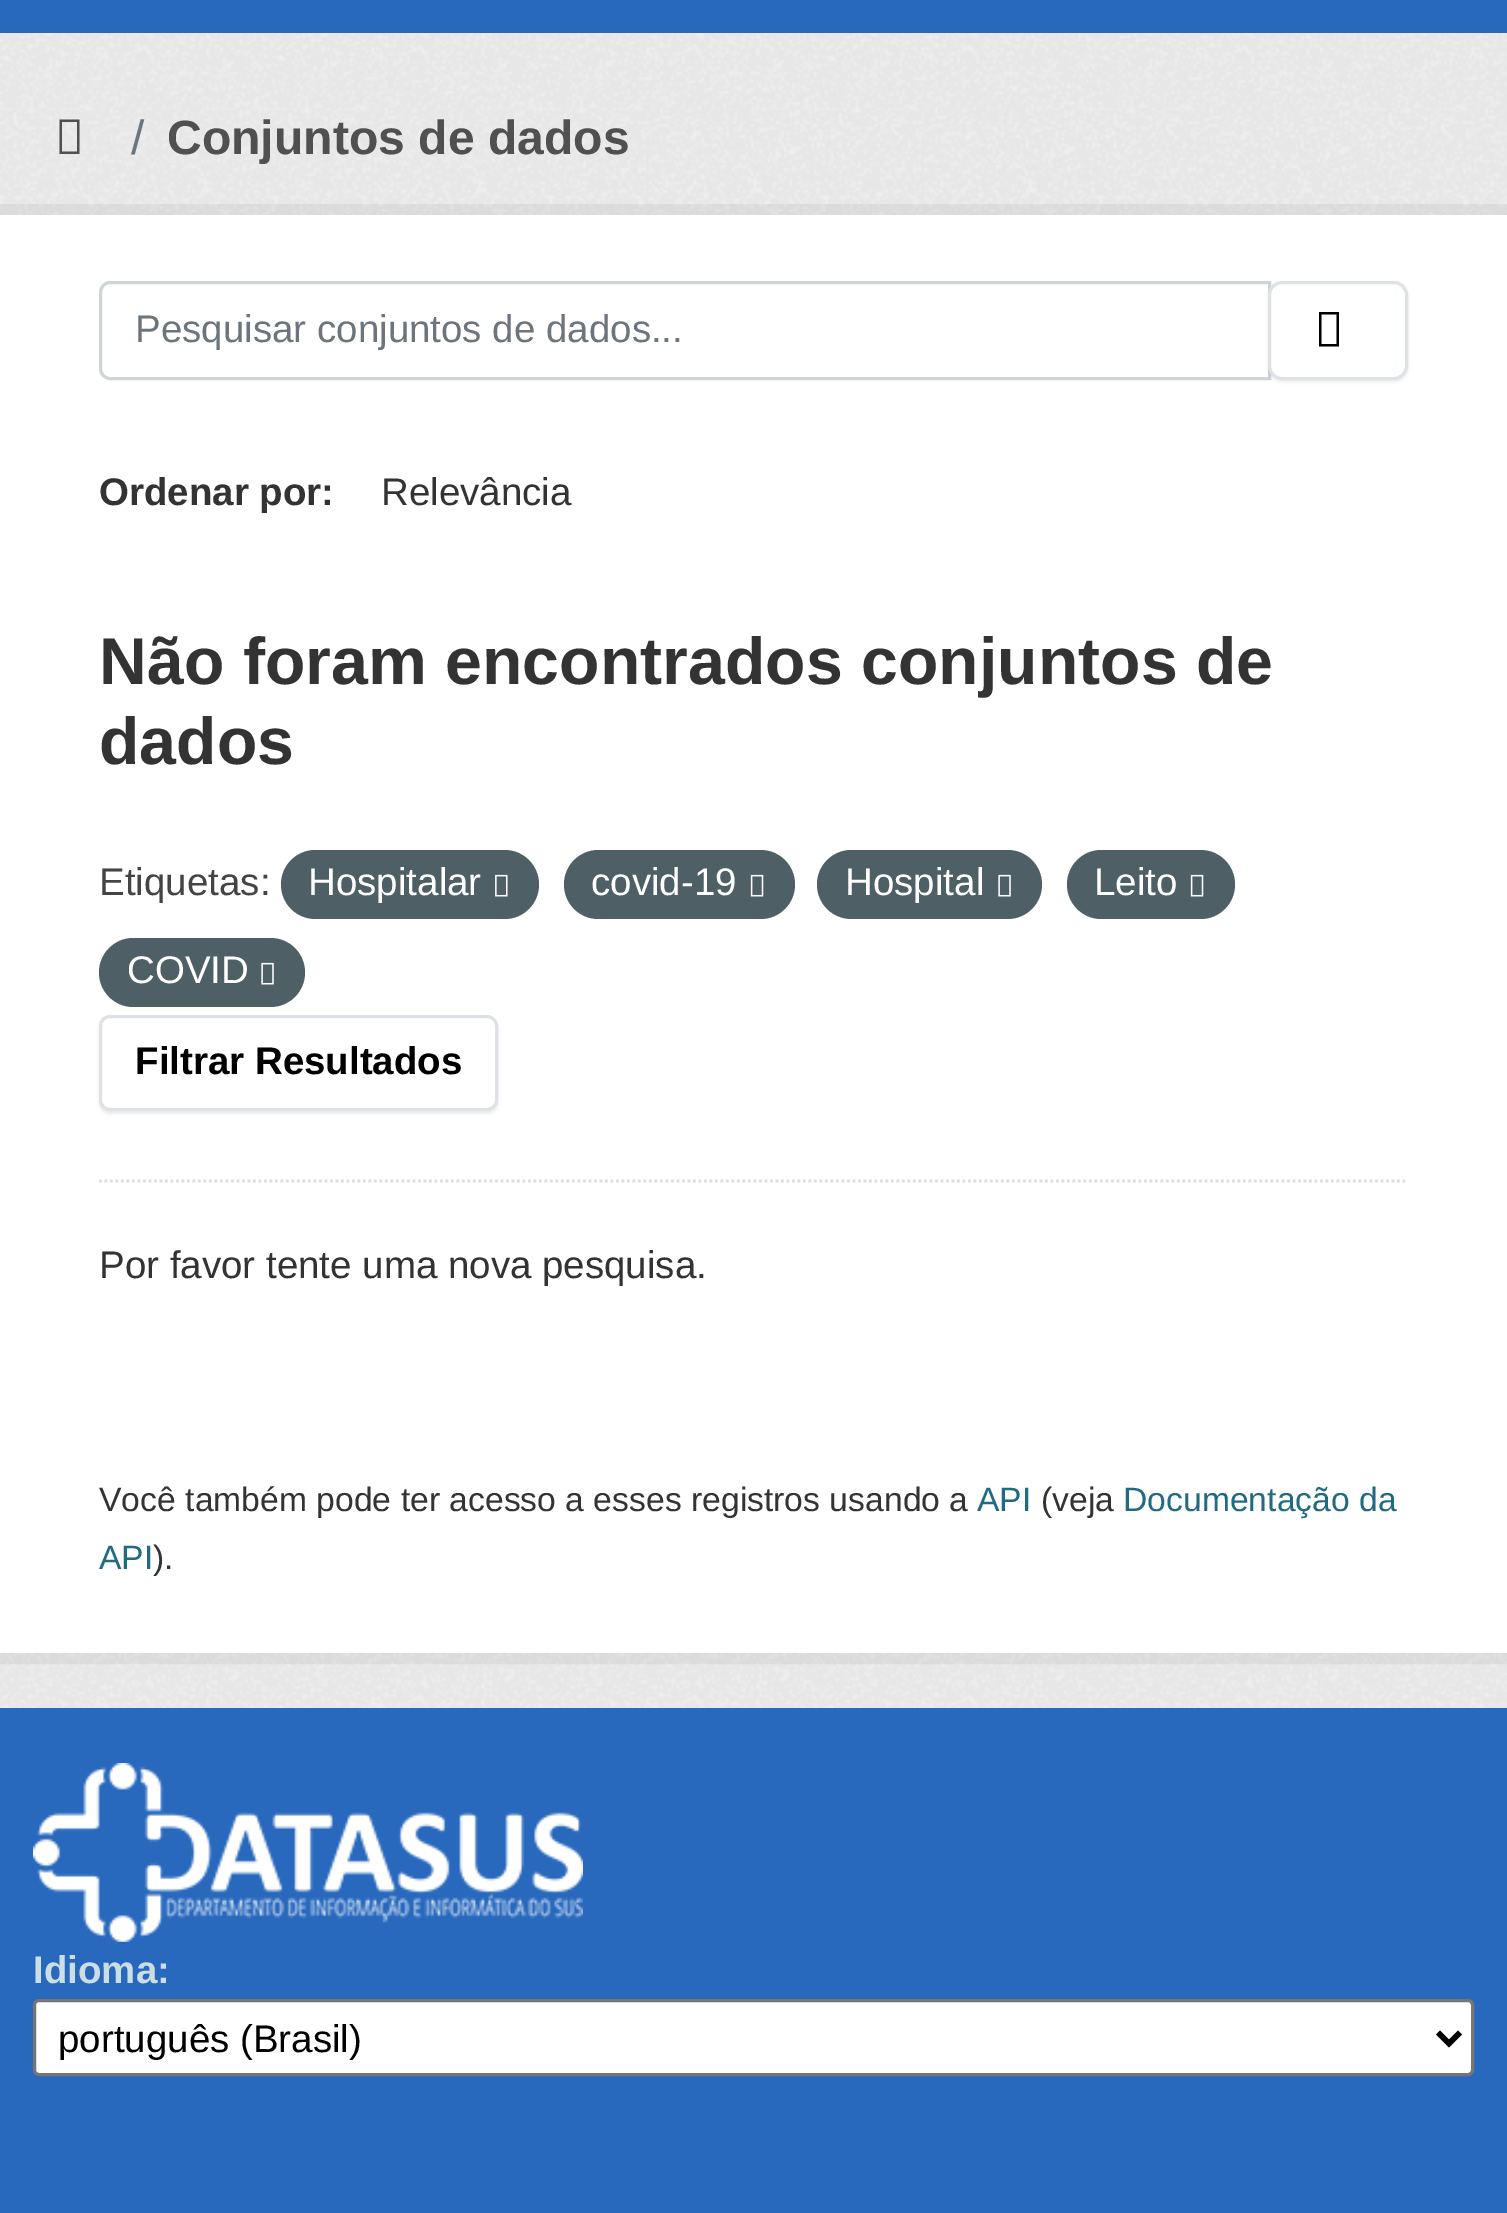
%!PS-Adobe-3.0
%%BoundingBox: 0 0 1507 2213
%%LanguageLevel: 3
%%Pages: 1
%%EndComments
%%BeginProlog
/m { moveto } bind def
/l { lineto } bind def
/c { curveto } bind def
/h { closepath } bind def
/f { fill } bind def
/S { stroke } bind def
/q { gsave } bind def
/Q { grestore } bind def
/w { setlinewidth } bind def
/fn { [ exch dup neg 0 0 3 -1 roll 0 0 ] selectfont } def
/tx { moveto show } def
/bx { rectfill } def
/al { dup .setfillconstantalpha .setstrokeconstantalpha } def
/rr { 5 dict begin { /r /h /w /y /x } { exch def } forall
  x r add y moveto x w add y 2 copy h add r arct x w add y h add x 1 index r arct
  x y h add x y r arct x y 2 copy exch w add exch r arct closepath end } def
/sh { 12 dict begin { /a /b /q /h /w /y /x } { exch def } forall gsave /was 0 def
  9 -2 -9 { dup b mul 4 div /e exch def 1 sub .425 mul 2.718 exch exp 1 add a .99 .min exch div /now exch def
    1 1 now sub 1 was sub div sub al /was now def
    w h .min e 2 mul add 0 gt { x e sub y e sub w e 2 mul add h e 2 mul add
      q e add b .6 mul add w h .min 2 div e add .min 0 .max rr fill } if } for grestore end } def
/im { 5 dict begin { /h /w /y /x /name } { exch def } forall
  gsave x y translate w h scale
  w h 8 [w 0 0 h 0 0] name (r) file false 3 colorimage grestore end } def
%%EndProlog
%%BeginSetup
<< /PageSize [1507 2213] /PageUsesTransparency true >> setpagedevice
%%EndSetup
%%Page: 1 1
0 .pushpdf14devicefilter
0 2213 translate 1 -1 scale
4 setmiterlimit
0.161 0.412 0.741 setrgbcolor
0 0 1507 2213 bx
0.933 setgray
0 33 1507 1675 bx
(image0.raw) 0 33 1507 1675 im
0.314 setgray
59.5 154 m 59.5 119.5 l 79.5 119.5 l 79.5 154 l h 62 151.5 m 77 151.5 l 77 122 l 62 122 l h f
/LiberationSans-Regular 48.1 fn
0.424 0.459 0.49 setrgbcolor
(/) 131 154 tx
/LiberationSans-Bold 48.1 fn
0.314 setgray
(Conjuntos de dados) 167 154 tx
0.05 al
0 setgray
11 w
-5.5 209.5 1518 1449 rectstroke
1 al
1 setgray
0 215 1507 1438 bx
0.867 setgray
2.8 w
[2.75 2.75] 0 setdash
99 1181 m 1408 1181 l S
0.808 0.831 0.855 setrgbcolor
3 w
[] 0 setdash
110 282.5 m 1269.5 282.5 l 1269.5 378.5 l 110 378.5 l 105 378.5 100.5 374 100.5 369 c 100.5 292 l 100.5 287 105 282.5 110 282.5 c h S
/LiberationSans-Regular 38.5 fn
0.424 0.459 0.49 setrgbcolor
(Pesquisar conjuntos de dados...) 135 342 tx
0 setgray
1268 283 140 99 14 1.5 0.07 sh
1 setgray
1269.5 282.5 137 96 12.5 rr q f Q
0.871 0.886 0.902 setrgbcolor
S
0 setgray
1319 346.5 m 1319 312 l 1339 312 l 1339 346.5 l h 1321.5 344 m 1336.5 344 l 1336.5 314.5 l 1321.5 314.5 l h f
/LiberationSans-Bold 38.5 fn
0.2 setgray
(Ordenar por:) 99 505 tx
/LiberationSans-Regular 38.5 fn
(Relevância) 381 505 tx
/LiberationSans-Bold 66.25 fn
(Não foram encontrados conjuntos de) 99 684 tx
(dados) 99 764 tx
/LiberationSans-Regular 38.5 fn
0.267 setgray
(Etiquetas:) 99 895 tx
0.306 0.373 0.396 setrgbcolor
281 850 258 69 34.5 rr f
1 setgray
(Hospitalar) 308 895 tx
(image1.raw) 495 874 13 23 im
0.306 0.373 0.396 setrgbcolor
564 850 231 69 34.5 rr f
1 setgray
(covid-19) 591 895 tx
(image2.raw) 750 874 14 23 im
0.306 0.373 0.396 setrgbcolor
817 850 225 69 34.5 rr f
1 setgray
(Hospital) 845 895 tx
(image3.raw) 998 874 13 23 im
0.306 0.373 0.396 setrgbcolor
1067 850 168 69 34.5 rr f
1 setgray
(Leito) 1094 895 tx
(image2.raw) 1190 874 14 23 im
0.306 0.373 0.396 setrgbcolor
99 938 206 69 34.5 rr f
1 setgray
(COVID) 127 983 tx
(image3.raw) 261 962 13 23 im
0 setgray
99 1018 399 96 11 1.5 0.07 sh
1 setgray
100.5 1016.5 396 93 9.5 rr q f Q
0.871 0.886 0.902 setrgbcolor
S
/LiberationSans-Bold 38.5 fn
0 setgray
(Filtrar Resultados) 135 1074 tx
/LiberationSans-Regular 38.5 fn
0.2 setgray
(Por favor tente uma nova pesquisa.) 99 1278 tx
/LiberationSans-Regular 33.7 fn
(Você também pode ter acesso a esses registros usando a) 99 1511 tx
0.125 0.42 0.51 setrgbcolor
(API) 977 1511 tx
0.2 setgray
(\(veja) 1041 1511 tx
0.125 0.42 0.51 setrgbcolor
(Documentação da) 1123 1511 tx
(API) 99 1569 tx
0.2 setgray
(\).) 153 1569 tx
(image4.raw) 33 1763 550 179 im
/LiberationSans-Bold 38.5 fn
0.8 0.871 0.89 setrgbcolor
(Idioma:) 33 1983 tx
1 setgray
34.5 2000.5 1438 74 4.5 rr q f Q
0.463 setgray
S
0 setgray
5.5 w
1438 2032.5 m 1449 2043.5 l 1460 2032.5 l S
/LiberationSans-Regular 38.5 fn
(português \(Brasil\)) 58 2052 tx
.poppdf14devicefilter showpage
%%EOF
